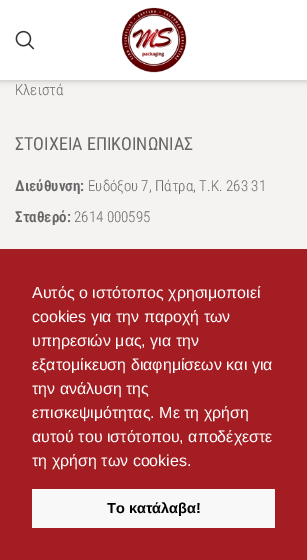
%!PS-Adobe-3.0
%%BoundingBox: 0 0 307 560
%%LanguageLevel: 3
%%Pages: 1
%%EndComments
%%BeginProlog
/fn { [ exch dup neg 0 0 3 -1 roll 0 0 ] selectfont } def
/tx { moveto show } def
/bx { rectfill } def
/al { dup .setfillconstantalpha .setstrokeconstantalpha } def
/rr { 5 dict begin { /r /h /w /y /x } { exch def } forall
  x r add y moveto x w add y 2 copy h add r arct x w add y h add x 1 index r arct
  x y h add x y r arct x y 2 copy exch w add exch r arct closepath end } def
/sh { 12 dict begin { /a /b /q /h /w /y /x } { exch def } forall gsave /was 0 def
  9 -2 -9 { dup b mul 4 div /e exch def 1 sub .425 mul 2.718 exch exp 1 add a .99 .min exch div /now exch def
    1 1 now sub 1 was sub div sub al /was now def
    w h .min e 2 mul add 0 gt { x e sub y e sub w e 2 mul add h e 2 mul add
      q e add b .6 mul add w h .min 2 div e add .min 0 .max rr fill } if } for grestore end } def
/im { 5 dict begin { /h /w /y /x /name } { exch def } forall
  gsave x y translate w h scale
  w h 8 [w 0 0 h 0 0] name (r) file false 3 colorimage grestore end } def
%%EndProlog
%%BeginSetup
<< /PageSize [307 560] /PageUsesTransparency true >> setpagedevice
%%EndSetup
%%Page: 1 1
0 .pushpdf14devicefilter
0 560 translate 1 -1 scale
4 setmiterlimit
0.961 0.953 0.945 setrgbcolor
0 0 307 560 bx
0 setgray
0 1 307 80 0 1.5 0.1 sh
0 1 307 80 0 4 0.1 sh
1 setgray
0 0 307 80 bx
(image0.raw) 15 30 20 20 im
(image1.raw) 121 7 66 66 im
/RobotoCondensed-Light 15 fn
0.4 setgray
(Κλειστά) 15 95 tx
/RobotoCondensed-Regular 18 fn
(ΣΤΟΙΧΕΙΑ ΕΠΙΚΟΙΝΩΝΙΑΣ) 15 150 tx
/RobotoCondensed-SemiBold 15 fn
(Διεύθυνση:) 15 191 tx
/RobotoCondensed-Light 15 fn
(Ευδόξου 7, Πάτρα, Τ.Κ. 263 31) 88 191 tx
/RobotoCondensed-SemiBold 15 fn
(Σταθερό:) 15 222 tx
/RobotoCondensed-Light 15 fn
(2614 000595) 74 222 tx
0.643 0.114 0.137 setrgbcolor
0 249 307 311 bx
/LiberationSans-Regular 16 fn
1 setgray
(Αυτός ο ιστότοπος χρησιμοποιεί) 32 298 tx
(cookies για την παροχή των) 32 322 tx
(υπηρεσιών μας, για την) 32 346 tx
(εξατομίκευση διαφημίσεων και για) 32 370 tx
(την ανάλυση της) 32 394 tx
(επισκεψιμότητας. Με τη χρήση) 32 418 tx
(αυτού του ιστότοπου, αποδέχεστε) 32 442 tx
(τη χρήση των cookies.) 32 466 tx
0.973 setgray
32 489 243 39 bx
/LiberationSans-Bold 14.5 fn
0 setgray
(Το κατάλαβα!) 107 513 tx
.poppdf14devicefilter showpage
%%EOF
